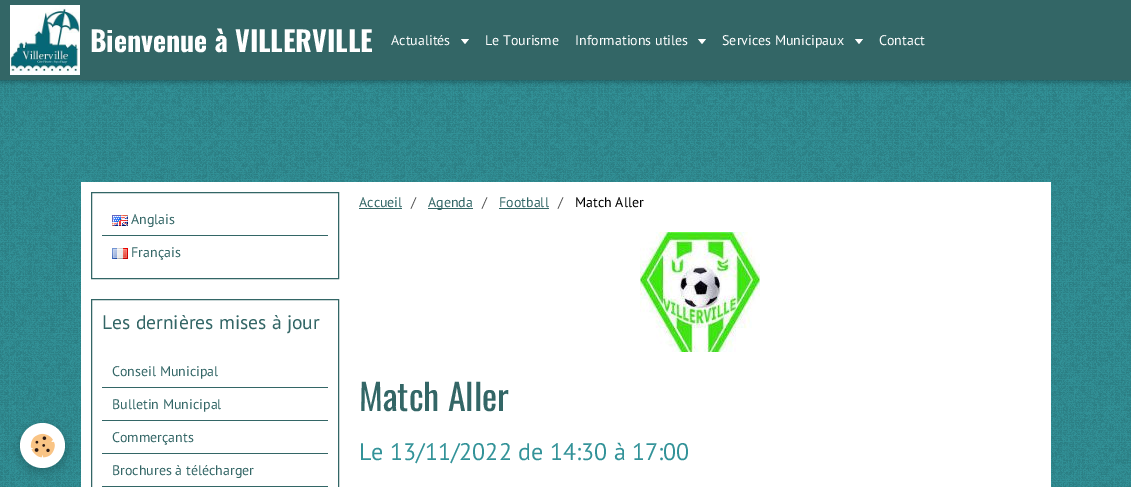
%!PS-Adobe-3.0
%%BoundingBox: 0 0 1131 487
%%LanguageLevel: 3
%%Pages: 1
%%EndComments
%%BeginProlog
/m { moveto } bind def
/l { lineto } bind def
/h { closepath } bind def
/f { fill } bind def
/fn { [ exch dup neg 0 0 3 -1 roll 0 0 ] selectfont } def
/tx { moveto show } def
/bx { rectfill } def
/al { dup .setfillconstantalpha .setstrokeconstantalpha } def
/ci { newpath 0 360 arc closepath } def
/rr { 5 dict begin { /r /h /w /y /x } { exch def } forall
  x r add y moveto x w add y 2 copy h add r arct x w add y h add x 1 index r arct
  x y h add x y r arct x y 2 copy exch w add exch r arct closepath end } def
/sh { 12 dict begin { /a /b /q /h /w /y /x } { exch def } forall gsave /was 0 def
  9 -2 -9 { dup b mul 4 div /e exch def 1 sub .425 mul 2.718 exch exp 1 add a .99 .min exch div /now exch def
    1 1 now sub 1 was sub div sub al /was now def
    w h .min e 2 mul add 0 gt { x e sub y e sub w e 2 mul add h e 2 mul add
      q e add b .6 mul add w h .min 2 div e add .min 0 .max rr fill } if } for grestore end } def
/im { 5 dict begin { /h /w /y /x /name } { exch def } forall
  gsave x y translate w h scale
  w h 8 [w 0 0 h 0 0] name (r) file false 3 colorimage grestore end } def
%%EndProlog
%%BeginSetup
<< /PageSize [1131 487] /PageUsesTransparency true >> setpagedevice
%%EndSetup
%%Page: 1 1
0 .pushpdf14devicefilter
0 487 translate 1 -1 scale
4 setmiterlimit
0.196 0.573 0.596 setrgbcolor
0 0 1131 487 bx
(image0.raw) 0 80 1131 407 im
0 setgray
0 2 1131 80 0 2.5 0.3 sh
0.2 0.4 0.4 setrgbcolor
0 0 1131 80 bx
(image1.raw) 10 5 70 70 im
/Oswald-Bold 28 fn
1 setgray
(Bienvenue à VILLERVILLE) 90 52 tx
/PTSans-Regular 14 fn
(Actualités) 391 45 tx
461 39 m 469 39 l 465 44 l h f
(Le Tourisme) 485 45 tx
(Informations utiles) 575 45 tx
698 39 m 706 39 l 702 44 l h f
(Services Municipaux) 722 45 tx
855 39 m 863 39 l 859 44 l h f
(Contact) 879 45 tx
0 setgray
20 426 45 45 22.5 5 0.24 sh
1 setgray
42.5 445.5 22.5 ci f
(image2.raw) 30 433 25 25 im
81 182 970 305 bx
0.2 0.4 0.4 setrgbcolor
91.5 192.5 247 86 rectstroke
102 235 226 1 bx
(image3.raw) 112 215 16 11 im
(Anglais) 131 224 tx
(image4.raw) 112 248 16 11 im
(Français) 131 257 tx
91.5 299.5 247 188 rectstroke
/PTSans-Regular 19.6 fn
(Les dernières mises à jour) 102 329 tx
102 387 226 1 bx
/PTSans-Regular 14 fn
(Conseil Municipal) 112 376 tx
102 420 226 1 bx
(Bulletin Municipal) 112 409 tx
102 453 226 1 bx
(Commerçants) 112 442 tx
102 486 226 1 bx
(Brochures à télécharger) 112 475 tx
(Accueil) 359 207 tx
359 208 43 1 bx
0.322 setgray
(/) 411 207 tx
0.2 0.4 0.4 setrgbcolor
428 208 45 1 bx
(Agenda) 428 207 tx
0.322 setgray
(/) 482 207 tx
0.2 0.4 0.4 setrgbcolor
(Football) 499 207 tx
499 208 50 1 bx
0.322 setgray
(/) 558 207 tx
0 setgray
(Match Aller) 575 207 tx
(image5.raw) 640 232 120 120 im
/Oswald-Regular 36 fn
0.2 0.4 0.4 setrgbcolor
(Match Aller) 359 411 tx
/PTSans-Regular 24 fn
0.196 0.573 0.596 setrgbcolor
(Le 13/11/2022 de 14:30 à 17:00) 359 460 tx
.poppdf14devicefilter showpage
%%EOF
